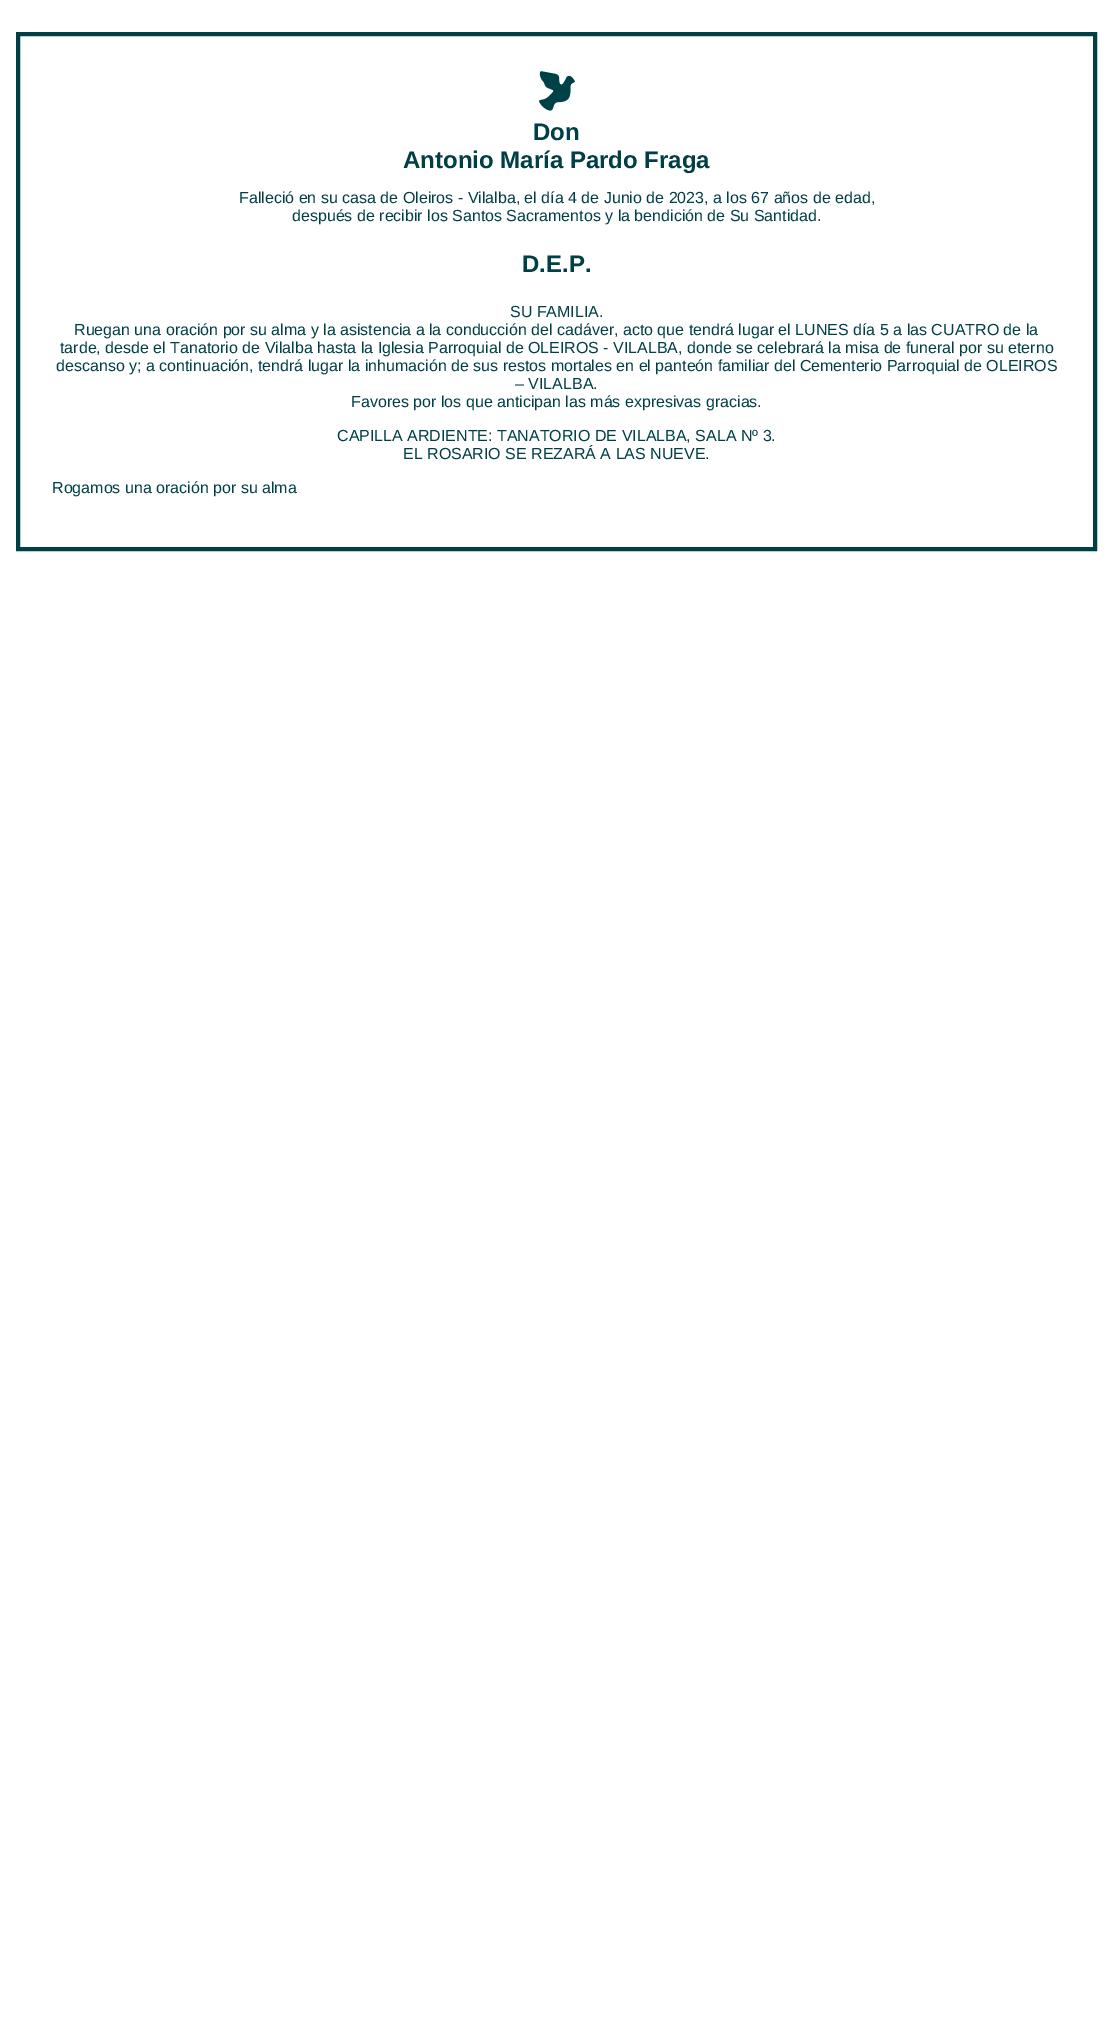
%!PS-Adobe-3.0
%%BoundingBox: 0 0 1113 2029
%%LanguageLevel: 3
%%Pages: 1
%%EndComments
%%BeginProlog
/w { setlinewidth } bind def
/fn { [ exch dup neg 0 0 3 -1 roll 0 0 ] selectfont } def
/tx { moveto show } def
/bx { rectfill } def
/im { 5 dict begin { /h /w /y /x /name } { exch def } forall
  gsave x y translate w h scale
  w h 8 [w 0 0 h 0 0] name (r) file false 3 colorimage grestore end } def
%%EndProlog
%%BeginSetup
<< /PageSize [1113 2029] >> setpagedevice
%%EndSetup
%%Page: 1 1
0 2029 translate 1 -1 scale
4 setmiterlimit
1 setgray
0 0 1113 2029 bx
(image0.raw) 538 71 37 40 im
0 0.247 0.275 setrgbcolor
4 w
18 34 1077 515 rectstroke
/LiberationSans-Bold 24 fn
(Don) 533 140 tx
(Antonio María Pardo Fraga) 403 168 tx
/LiberationSans-Regular 16 fn
(Falleció en su casa de Oleiros - Vilalba, el día 4 de Junio de 2023, a los 67 años de edad,) 239 203 tx
(después de recibir los Santos Sacramentos y la bendición de Su Santidad.) 292 221 tx
/LiberationSans-Bold 24 fn
(D.E.P.) 522 272 tx
/LiberationSans-Regular 16 fn
(SU FAMILIA.) 510 317 tx
(Ruegan una oración por su alma y la asistencia a la conducción del cadáver, acto que tendrá lugar el LUNES día 5 a las CUATRO de la) 74 335 tx
(tarde, desde el Tanatorio de Vilalba hasta la Iglesia Parroquial de OLEIROS - VILALBA, donde se celebrará la misa de funeral por su eterno) 60 353 tx
(descanso y; a continuación, tendrá lugar la inhumación de sus restos mortales en el panteón familiar del Cementerio Parroquial de OLEIROS) 56 371 tx
(– VILALBA.) 515 389 tx
(Favores por los que anticipan las más expresivas gracias.) 351 407 tx
(CAPILLA ARDIENTE: TANATORIO DE VILALBA, SALA Nº 3.) 337 441 tx
(EL ROSARIO SE REZARÁ A LAS NUEVE.) 403 459 tx
(Rogamos una oración por su alma) 52 493 tx
showpage
%%EOF
